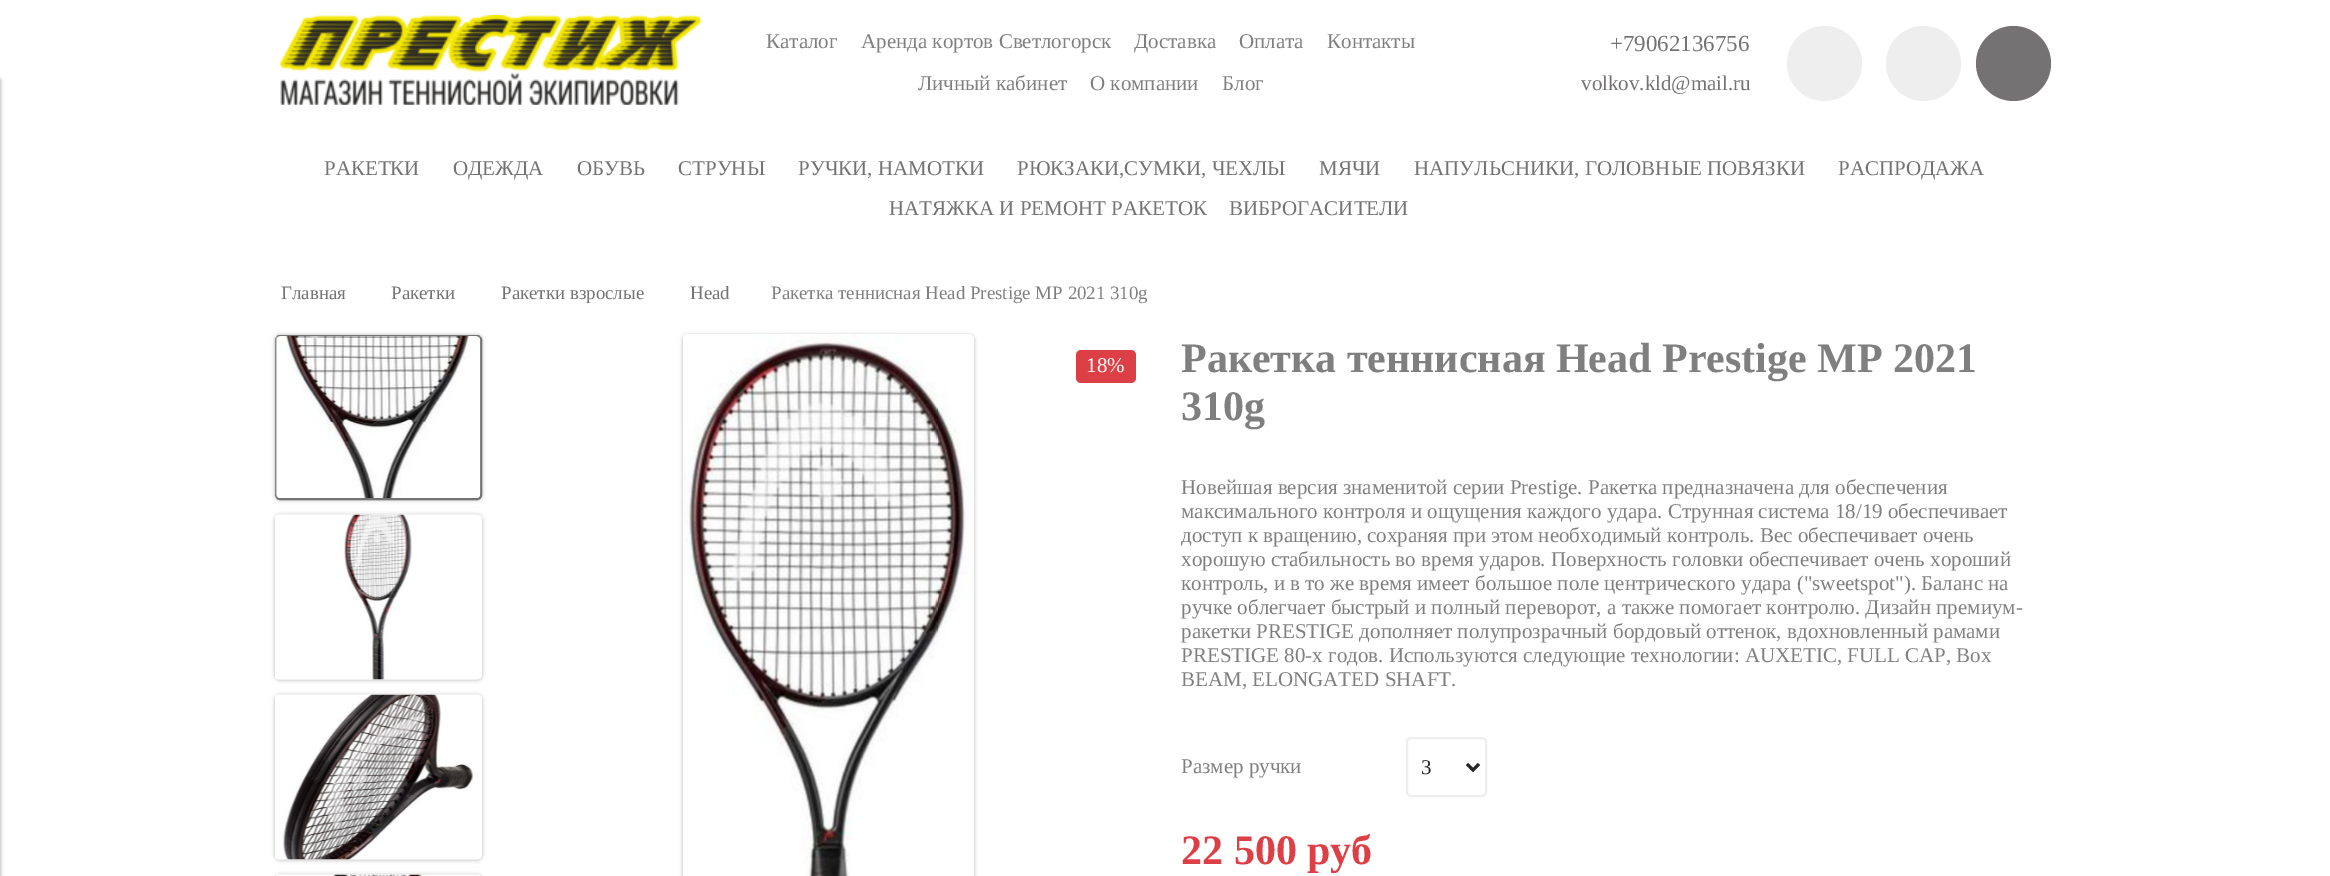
%!PS-Adobe-3.0
%%BoundingBox: 0 0 2330 876
%%LanguageLevel: 3
%%Pages: 1
%%EndComments
%%BeginProlog
/m { moveto } bind def
/l { lineto } bind def
/f { fill } bind def
/S { stroke } bind def
/w { setlinewidth } bind def
/fn { [ exch dup neg 0 0 3 -1 roll 0 0 ] selectfont } def
/tx { moveto show } def
/bx { rectfill } def
/al { dup .setfillconstantalpha .setstrokeconstantalpha } def
/ci { newpath 0 360 arc closepath } def
/rr { 5 dict begin { /r /h /w /y /x } { exch def } forall
  x r add y moveto x w add y 2 copy h add r arct x w add y h add x 1 index r arct
  x y h add x y r arct x y 2 copy exch w add exch r arct closepath end } def
/sh { 12 dict begin { /a /b /q /h /w /y /x } { exch def } forall gsave /was 0 def
  9 -2 -9 { dup b mul 4 div /e exch def 1 sub .425 mul 2.718 exch exp 1 add a .99 .min exch div /now exch def
    1 1 now sub 1 was sub div sub al /was now def
    w h .min e 2 mul add 0 gt { x e sub y e sub w e 2 mul add h e 2 mul add
      q e add b .6 mul add w h .min 2 div e add .min 0 .max rr fill } if } for grestore end } def
/im { 5 dict begin { /h /w /y /x /name } { exch def } forall
  gsave x y translate w h scale
  w h 8 [w 0 0 h 0 0] name (r) file false 3 colorimage grestore end } def
%%EndProlog
%%BeginSetup
<< /PageSize [2330 876] /PageUsesTransparency true >> setpagedevice
%%EndSetup
%%Page: 1 1
0 .pushpdf14devicefilter
0 876 translate 1 -1 scale
4 setmiterlimit
1 setgray
0 0 2330 876 bx
0 setgray
-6 80 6 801 0 2 0.4 sh
(image0.raw) 280 15 421 90 im
/LiberationSerif-Regular 21 fn
0.498 setgray
(Каталог) 766 48 tx
(Аренда кортов Светлогорск) 861 48 tx
(Доставка) 1134 48 tx
(Оплата) 1239 48 tx
(Контакты) 1327 48 tx
(Личный кабинет) 918 90 tx
(О компании) 1090 90 tx
(Блог) 1222 90 tx
/LiberationSerif-Regular 23 fn
0.455 0.447 0.447 setrgbcolor
(+79062136756) 1610 51 tx
/LiberationSerif-Regular 21 fn
(volkov.kld@mail.ru) 1581 90 tx
0.933 setgray
1824.5 63.5 37.5 ci f
1923.5 63.5 37.5 ci f
0.455 0.447 0.447 setrgbcolor
2013.5 63.5 37.5 ci f
(РАКЕТКИ) 324 175 tx
(ОДЕЖДА) 453 175 tx
(ОБУВЬ) 577 175 tx
(СТРУНЫ) 678 175 tx
(РУЧКИ, НАМОТКИ) 798 175 tx
(РЮКЗАКИ,СУМКИ, ЧЕХЛЫ) 1017 175 tx
(МЯЧИ) 1319 175 tx
(НАПУЛЬСНИКИ, ГОЛОВНЫЕ ПОВЯЗКИ) 1414 175 tx
(РАСПРОДАЖА) 1838 175 tx
(НАТЯЖКА И РЕМОНТ РАКЕТОК) 889 215 tx
(ВИБРОГАСИТЕЛИ) 1229 215 tx
/LiberationSerif-Regular 18.9 fn
(Главная) 281 299 tx
(Ракетки) 391 299 tx
(Ракетки взрослые) 501 299 tx
(Head) 690 299 tx
0.498 setgray
(Ракетка теннисная Head Prestige MP 2021 310g) 771 299 tx
0 setgray
275 335 207 165 5 2 0.3 sh
0.455 0.447 0.447 setrgbcolor
2 w
276 336 205 163 4 rr S
(image1.raw) 275 336 206 162 im
0 setgray
275 515 207 165 5 2 0.3 sh
(image2.raw) 275 514 207 166 im
275 695 207 165 5 2 0.3 sh
(image3.raw) 275 694 207 166 im
275 875 207 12 5 2 0.3 sh
(image4.raw) 276 874 204 2 im
683 335 291 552 5 2 0.3 sh
(image5.raw) 683 334 291 542 im
0.867 0.247 0.275 setrgbcolor
1076 350 60 33 5 rr f
/LiberationSerif-Regular 21 fn
1 setgray
(18%) 1086 372 tx
/LiberationSerif-Bold 42 fn
0.498 setgray
(Ракетка теннисная Head Prestige MP 2021) 1181 372 tx
(310g) 1181 420 tx
/LiberationSerif-Regular 21 fn
(Новейшая версия знаменитой серии Prestige. Ракетка предназначена для обеспечения) 1181 494 tx
(максимального контроля и ощущения каждого удара. Струнная система 18/19 обеспечивает) 1181 518 tx
(доступ к вращению, сохраняя при этом необходимый контроль. Вес обеспечивает очень) 1181 542 tx
(хорошую стабильность во время ударов. Поверхность головки обеспечивает очень хороший) 1181 566 tx
(контроль, и в то же время имеет большое поле центрического удара \("sweetspot"\). Баланс на) 1181 590 tx
(ручке облегчает быстрый и полный переворот, а также помогает контролю. Дизайн премиум-) 1181 614 tx
(ракетки PRESTIGE дополняет полупрозрачный бордовый оттенок, вдохновленный рамами) 1181 638 tx
(PRESTIGE 80-х годов. Используются следующие технологии: AUXETIC, FULL CAP, Box) 1181 662 tx
(BEAM, ELONGATED SHAFT.) 1181 686 tx
(Размер ручки) 1181 773 tx
0.933 setgray
1407 738 79 58 4 rr S
0.145 setgray
3 w
1467 764 m 1473 770 l 1479 764 l S
(3) 1421 774 tx
/LiberationSerif-Bold 42 fn
0.867 0.247 0.275 setrgbcolor
(22 500 руб) 1181 864 tx
.poppdf14devicefilter showpage
%%EOF
